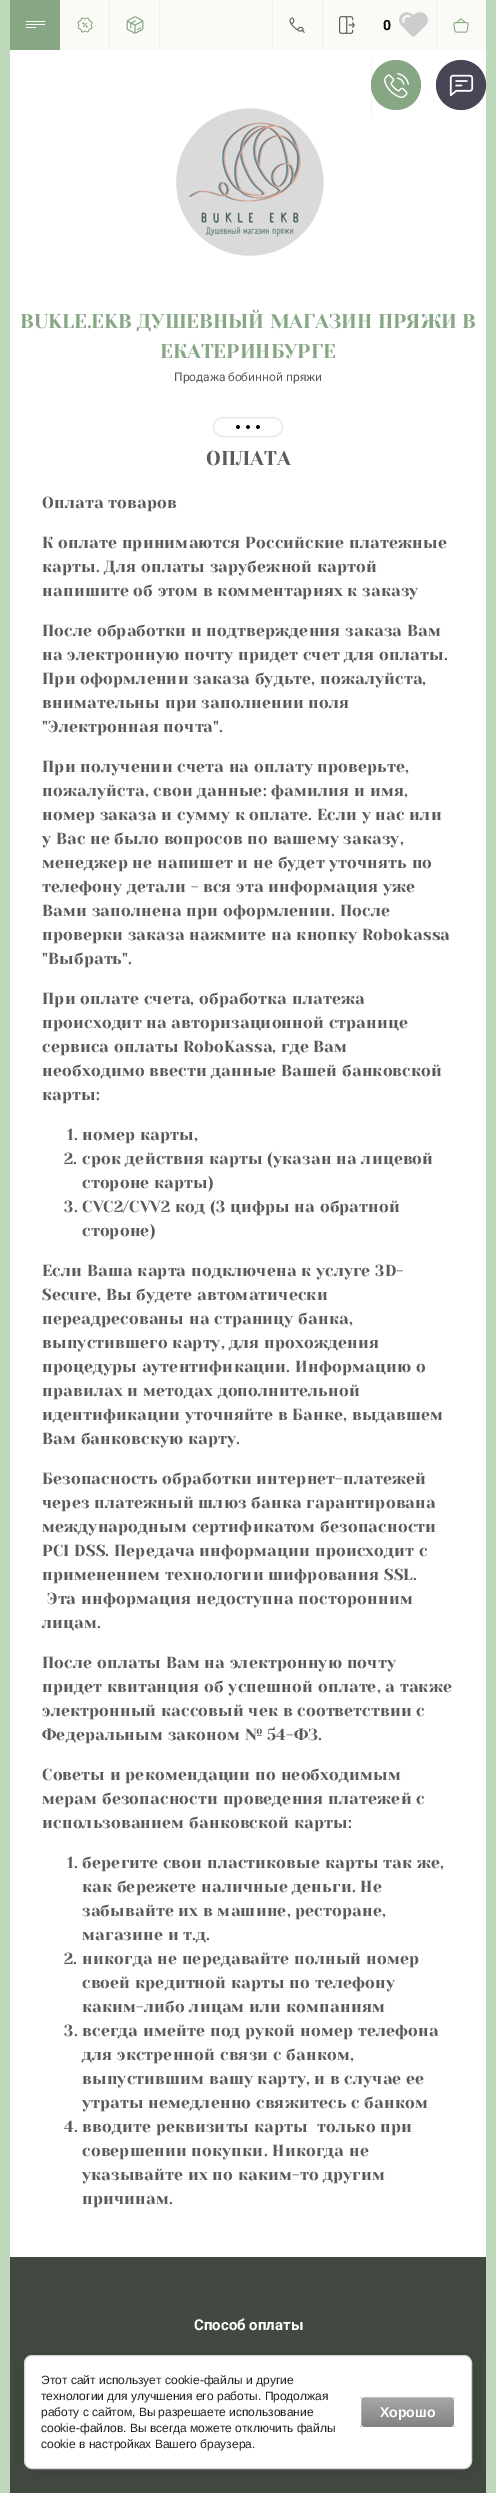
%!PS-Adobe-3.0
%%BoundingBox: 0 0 496 2493
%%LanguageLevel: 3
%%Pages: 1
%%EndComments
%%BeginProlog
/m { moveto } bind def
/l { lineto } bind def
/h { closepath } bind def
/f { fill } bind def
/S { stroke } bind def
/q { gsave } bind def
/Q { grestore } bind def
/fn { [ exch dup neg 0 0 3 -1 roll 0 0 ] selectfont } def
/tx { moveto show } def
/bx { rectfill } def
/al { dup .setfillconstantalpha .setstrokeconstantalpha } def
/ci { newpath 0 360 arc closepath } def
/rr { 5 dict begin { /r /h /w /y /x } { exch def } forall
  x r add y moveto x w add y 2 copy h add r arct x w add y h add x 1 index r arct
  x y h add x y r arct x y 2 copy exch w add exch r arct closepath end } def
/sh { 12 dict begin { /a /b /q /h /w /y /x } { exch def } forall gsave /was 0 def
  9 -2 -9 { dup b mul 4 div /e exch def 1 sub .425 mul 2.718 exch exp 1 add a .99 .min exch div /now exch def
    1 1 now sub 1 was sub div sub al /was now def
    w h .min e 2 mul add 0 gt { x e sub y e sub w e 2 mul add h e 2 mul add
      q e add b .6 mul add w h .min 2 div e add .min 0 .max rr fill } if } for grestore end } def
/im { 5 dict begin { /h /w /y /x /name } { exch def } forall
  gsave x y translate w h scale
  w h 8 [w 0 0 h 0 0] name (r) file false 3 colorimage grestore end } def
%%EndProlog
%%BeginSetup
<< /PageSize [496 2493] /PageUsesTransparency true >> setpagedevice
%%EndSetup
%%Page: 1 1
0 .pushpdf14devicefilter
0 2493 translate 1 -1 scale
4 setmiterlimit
0.741 0.847 0.733 setrgbcolor
0 0 496 2493 bx
1 setgray
10 50 476 2207 bx
0.98 0.984 0.965 setrgbcolor
60 0 426 50 bx
0.525 0.651 0.518 setrgbcolor
10 0 50 50 bx
1 setgray
26 21 19 1 bx
26 24 19 1 bx
26 27 10 1 bx
0.933 0.933 0.918 setrgbcolor
109 0 1 50 bx
(image0.raw) 77 17 16 16 im
159 0 1 50 bx
(image1.raw) 126 16 18 18 im
272 0 1 50 bx
(image2.raw) 289 17 16 16 im
322 0 1 50 bx
(image3.raw) 339 16 16 18 im
(image4.raw) 399 12 29 25 im
/Roboto-Bold 14 fn
0 setgray
(0) 383 30 tx
0.933 0.933 0.918 setrgbcolor
436 0 1 50 bx
(image5.raw) 453 18 16 15 im
(image6.raw) 176 108 148 148 im
/YesevaOne-Regular 20 fn
0.525 0.651 0.518 setrgbcolor
(BUKLE.EKB ДУШЕВНЫЙ МАГАЗИН ПРЯЖИ В) 20 328 tx
(ЕКАТЕРИНБУРГЕ) 160 358 tx
/Roboto-Regular 12 fn
0.357 setgray
(Продажа) 174 381 tx
(бобинной) 228 381 tx
(пряжи) 286 381 tx
0.898 setgray
213.5 417.5 69 19 9.5 rr S
(image7.raw) 236 425 24 4 im
/YesevaOne-Regular 20 fn
0.357 setgray
(ОПЛАТА) 206 465 tx
/YesevaOne-Regular 16 fn
42 508 m 0.15 0 (Оплата товаров) ashow
42 548 m 0.15 0 (К оплате принимаются Российские платежные) ashow
42 572 m 0.15 0 (карты. Для оплаты зарубежной картой) ashow
42 596 m 0.15 0 (напишите об этом в комментариях к заказу) ashow
42 636 m 0.15 0 (После обработки и подтверждения заказа Вам) ashow
42 660 m 0.15 0 (на электронную почту придет счет для оплаты.) ashow
42 684 m 0.15 0 (При оформлении заказа будьте, пожалуйста,) ashow
42 708 m 0.15 0 (внимательны при заполнении поля) ashow
42 732 m 0.15 0 ("Электронная почта".) ashow
42 772 m 0.15 0 (При получении счета на оплату проверьте,) ashow
42 796 m 0.15 0 (пожалуйста, свои данные: фамилия и имя,) ashow
42 820 m 0.15 0 (номер заказа и сумму к оплате. Если у нас или) ashow
42 844 m 0.15 0 (у Вас не было вопросов по вашему заказу,) ashow
42 868 m 0.15 0 (менеджер не напишет и не будет уточнять по) ashow
42 892 m 0.15 0 (телефону детали - вся эта информация уже) ashow
42 916 m 0.15 0 (Вами заполнена при оформлении. После) ashow
42 940 m 0.15 0 (проверки заказа нажмите на кнопку Robokassa) ashow
42 964 m 0.15 0 ("Выбрать".) ashow
42 1004 m 0.15 0 (При оплате счета, обработка платежа) ashow
42 1028 m 0.15 0 (происходит на авторизационной странице) ashow
42 1052 m 0.15 0 (сервиса оплаты RoboKassa, где Вам) ashow
42 1076 m 0.15 0 (необходимо ввести данные Вашей банковской) ashow
42 1100 m 0.15 0 (карты:) ashow
67 1140 m 0.15 0 (1. номер карты,) ashow
64 1164 m 0.15 0 (2. срок действия карты \(указан на лицевой) ashow
82 1188 m 0.15 0 (стороне карты\)) ashow
64 1212 m 0.15 0 (3. CVC2/CVV2 код \(3 цифры на обратной) ashow
82 1236 m 0.15 0 (стороне\)) ashow
42 1276 m 0.15 0 (Если Ваша карта подключена к услуге 3D-) ashow
42 1300 m 0.15 0 (Secure, Вы будете автоматически) ashow
42 1324 m 0.15 0 (переадресованы на страницу банка,) ashow
42 1348 m 0.15 0 (выпустившего карту, для прохождения) ashow
42 1372 m 0.15 0 (процедуры аутентификации. Информацию о) ashow
42 1396 m 0.15 0 (правилах и методах дополнительной) ashow
42 1420 m 0.15 0 (идентификации уточняйте в Банке, выдавшем) ashow
42 1444 m 0.15 0 (Вам банковскую карту.) ashow
42 1484 m 0.15 0 (Безопасность обработки интернет-платежей) ashow
42 1508 m 0.15 0 (через платежный шлюз банка гарантирована) ashow
42 1532 m 0.15 0 (международным сертификатом безопасности) ashow
42 1556 m 0.15 0 (PCI DSS. Передача информации происходит с) ashow
42 1580 m 0.15 0 (применением технологии шифрования SSL.) ashow
47 1604 m 0.15 0 (Эта информация недоступна посторонним) ashow
42 1628 m 0.15 0 (лицам.) ashow
42 1668 m 0.15 0 (После оплаты Вам на электронную почту) ashow
42 1692 m 0.15 0 (придет квитанция об успешной оплате, а также) ashow
42 1716 m 0.15 0 (электронный кассовый чек в соответствии с) ashow
42 1740 m 0.15 0 (Федеральным законом № 54-ФЗ.) ashow
42 1780 m 0.15 0 (Советы и рекомендации по необходимым) ashow
42 1804 m 0.15 0 (мерам безопасности проведения платежей с) ashow
42 1828 m 0.15 0 (использованием банковской карты:) ashow
67 1868 m 0.15 0 (1. берегите свои пластиковые карты так же,) ashow
82 1892 m 0.15 0 (как бережете наличные деньги. Не) ashow
82 1916 m 0.15 0 (забывайте их в машине, ресторане,) ashow
82 1940 m 0.15 0 (магазине и т.д.) ashow
64 1964 m 0.15 0 (2. никогда не передавайте полный номер) ashow
82 1988 m 0.15 0 (своей кредитной карты по телефону) ashow
82 2012 m 0.15 0 (каким-либо лицам или компаниям) ashow
64 2036 m 0.15 0 (3. всегда имейте под рукой номер телефона) ashow
82 2060 m 0.15 0 (для экстренной связи с банком,) ashow
82 2084 m 0.15 0 (выпустившим вашу карту, и в случае ее) ashow
82 2108 m 0.15 0 (утраты немедленно свяжитесь с банком) ashow
64 2132 m 0.15 0 (4. вводите реквизиты карты  только при) ashow
82 2156 m 0.15 0 (совершении покупки. Никогда не) ashow
82 2180 m 0.15 0 (указывайте их по каким-то другим) ashow
82 2204 m 0.15 0 (причинам.) ashow
0.255 0.286 0.251 setrgbcolor
10 2257 476 236 bx
/Roboto-Bold 15 fn
1 setgray
(Способ оплаты) 194 2330 tx
0.949 setgray
371 60 1 55 bx
0.525 0.651 0.518 setrgbcolor
396 85 25 ci f
(image8.raw) 384 73 25 25 im
0.275 0.275 0.341 setrgbcolor
461 85 25 ci f
(image9.raw) 449 74 25 23 im
0 setgray
26 2357 448 114 8 9 0.14 sh
1 setgray
24.5 2355.5 447 113 7.5 rr q f Q
0.839 setgray
S
/LiberationSans-Regular 12 fn
0.129 setgray
(Этот сайт использует cookie-файлы и другие) 41 2384 tx
(технологии для улучшения его работы. Продолжая) 41 2400 tx
(работу с сайтом, Вы разрешаете использование) 41 2416 tx
(cookie-файлов. Вы всегда можете отключить файлы) 41 2432 tx
(cookie в настройках Вашего браузера.) 41 2448 tx
q
360 2396 95 32 4 rr clip newpath
q 360 2397 m 455 2397 l 455 2427 l 360 2427 l h clip newpath
<< /ShadingType 2 /ColorSpace /DeviceRGB /Coords [408 2397 408 2427] /Extend [true true] /Function << /FunctionType 2 /Domain [0 1] /C0 [0.659 0.659 0.659] /C1 [0.51 0.51 0.51] /N 1 >> >> shfill Q
Q
1 setgray
360.5 2396.5 94 31 3.5 rr S
/LiberationSans-Bold 14 fn
(Хорошо) 380 2417 tx
.poppdf14devicefilter showpage
%%EOF
